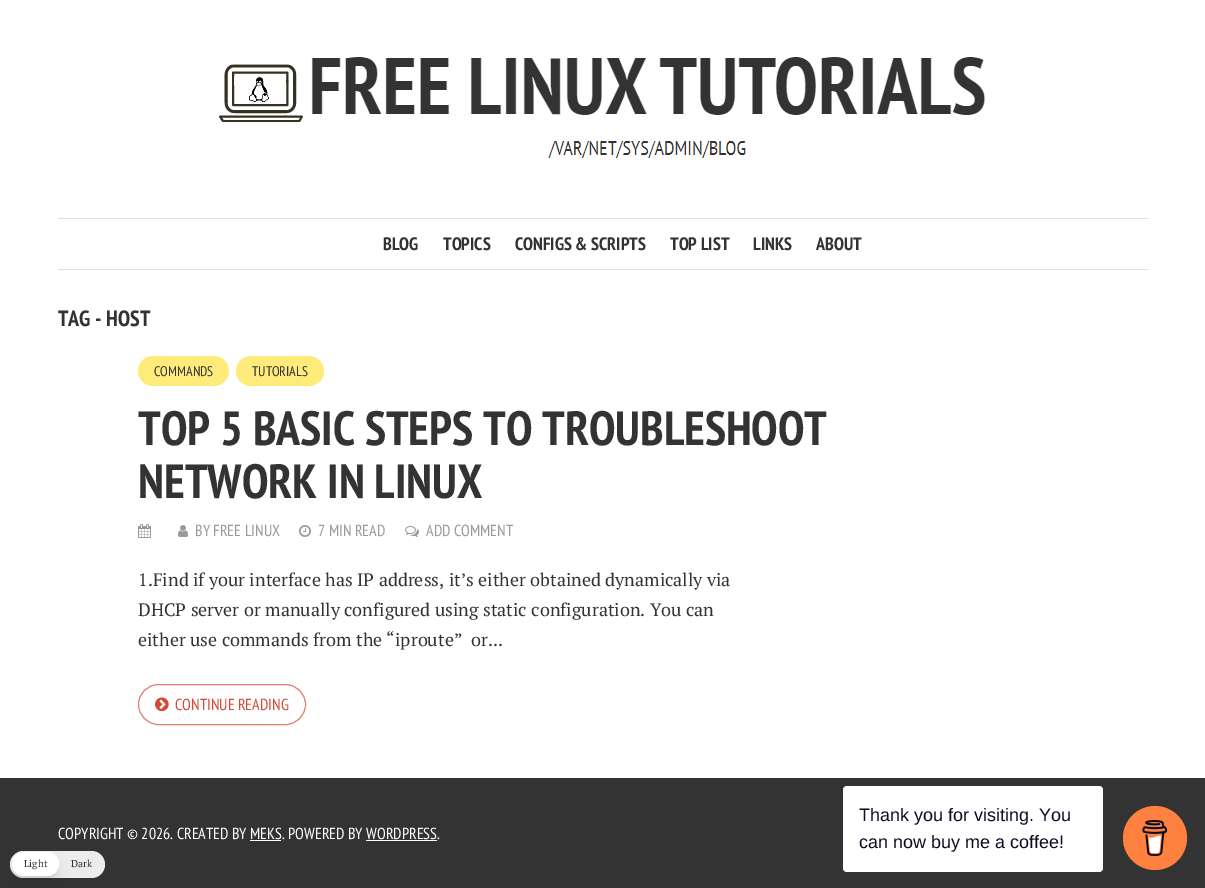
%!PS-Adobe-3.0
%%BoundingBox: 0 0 1205 888
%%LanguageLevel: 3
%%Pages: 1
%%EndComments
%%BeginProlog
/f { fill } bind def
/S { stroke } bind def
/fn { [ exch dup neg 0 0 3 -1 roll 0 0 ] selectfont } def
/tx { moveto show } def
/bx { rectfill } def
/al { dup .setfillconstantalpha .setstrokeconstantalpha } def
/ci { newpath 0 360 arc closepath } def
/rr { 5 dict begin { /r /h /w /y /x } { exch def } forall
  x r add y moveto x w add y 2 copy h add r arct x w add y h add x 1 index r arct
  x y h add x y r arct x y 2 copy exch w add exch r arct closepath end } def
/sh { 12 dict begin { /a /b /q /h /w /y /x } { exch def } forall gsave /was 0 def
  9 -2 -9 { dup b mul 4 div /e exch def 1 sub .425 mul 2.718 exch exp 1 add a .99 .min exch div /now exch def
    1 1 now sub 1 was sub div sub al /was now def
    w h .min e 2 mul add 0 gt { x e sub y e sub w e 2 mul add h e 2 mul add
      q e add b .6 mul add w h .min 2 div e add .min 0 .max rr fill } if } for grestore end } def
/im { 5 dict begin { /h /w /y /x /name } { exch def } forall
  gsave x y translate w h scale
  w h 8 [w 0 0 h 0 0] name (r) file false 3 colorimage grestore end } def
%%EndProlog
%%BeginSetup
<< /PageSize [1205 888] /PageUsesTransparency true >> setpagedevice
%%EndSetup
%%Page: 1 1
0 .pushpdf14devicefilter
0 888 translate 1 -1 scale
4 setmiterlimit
1 setgray
0 0 1205 888 bx
(image0.raw) 219 57 766 101 im
0.878 setgray
58 218 1090 1 bx
58 269 1090 1 bx
/PTSansNarrow-Bold 18 fn
0.2 setgray
(BLOG) 383 250 tx
(TOPICS) 443 250 tx
(CONFIGS & SCRIPTS) 515 250 tx
(TOP LIST) 670 250 tx
(LINKS) 753 250 tx
(ABOUT) 816 250 tx
/PTSansNarrow-Bold 22 fn
(TAG - HOST) 58 326 tx
1 0.922 0.475 setrgbcolor
138 356 91 30 15 rr f
/PTSansNarrow-Regular 14 fn
0.2 setgray
(COMMANDS) 154 376 tx
1 0.922 0.475 setrgbcolor
236 356 88 30 15 rr f
0.2 setgray
(TUTORIALS) 252 376 tx
/PTSansNarrow-Bold 48 fn
(TOP 5 BASIC STEPS TO TROUBLESHOOT) 138 445 tx
(NETWORK IN LINUX) 138 498 tx
(image1.raw) 138 524 13 14 im
(image2.raw) 178 525 10 12 im
/PTSansNarrow-Regular 16 fn
0.6 setgray
(BY FREE LINUX) 195 536 tx
(image3.raw) 299 525 12 12 im
(7 MIN READ) 318 536 tx
(image4.raw) 405 526 14 11 im
(ADD COMMENT) 426 536 tx
/PTSerif-Regular 18 fn
0.2 setgray
(1.Find if your interface has IP address, it’s either obtained dynamically via) 138 586 tx
(DHCP server or manually configured using static configuration. You can) 138 616 tx
(either use commands from the “iproute”  or...) 138 646 tx
0.878 0.498 0.447 setrgbcolor
138.5 684.5 167 40 20 rr S
(image5.raw) 155 697 14 15 im
/PTSansNarrow-Regular 16 fn
0.827 0.282 0.212 setrgbcolor
(CONTINUE READING) 175 710 tx
0.2 setgray
0 778 1205 110 bx
1 setgray
(COPYRIGHT © 2026. CREATED BY MEKS. POWERED BY WORDPRESS.) 58 839 tx
250 840 31 1 bx
366 840 71 1 bx
843 786 260 86 4 rr f
/LiberationSans-Regular 18 fn
0.051 0.047 0.133 setrgbcolor
(Thank you for visiting. You) 859 821 tx
(can now buy me a coffee!) 859 848 tx
1 0.506 0.247 setrgbcolor
1155 838 32 ci f
(image6.raw) 1142 820 26 36 im
0.925 setgray
10 851 95 27 13.5 rr f
0 setgray
16 860 39 16 8 3 0.1 sh
15 865 41 18 9 7.5 0.1 sh
1 setgray
12 852 47 24 12 rr f
/PTSerif-Regular 10 fn
0.2 setgray
(Light) 24 867 tx
(Dark) 71 867 tx
.poppdf14devicefilter showpage
%%EOF
